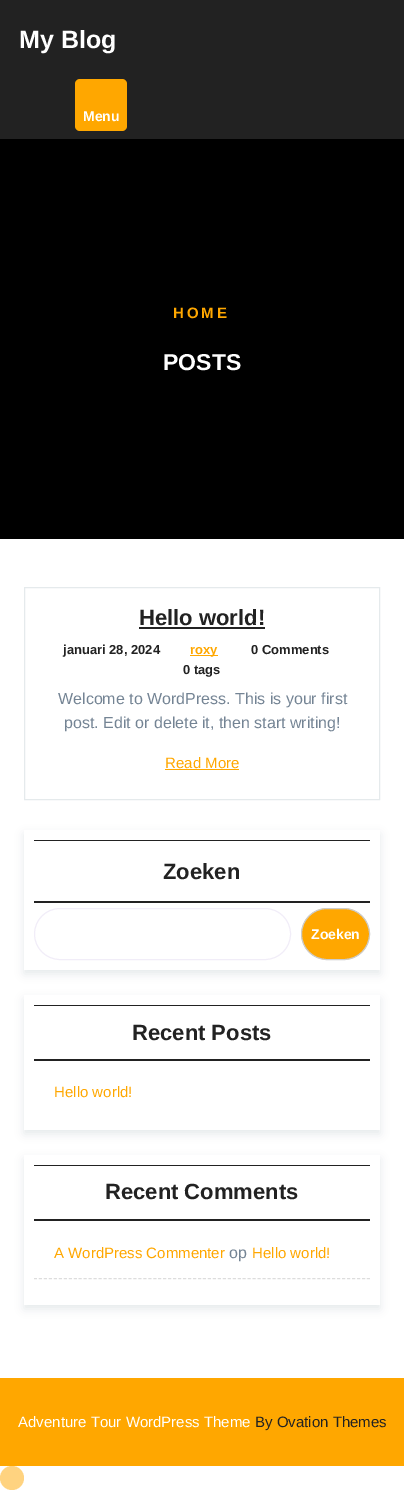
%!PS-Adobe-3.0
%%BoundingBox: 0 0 404 1504
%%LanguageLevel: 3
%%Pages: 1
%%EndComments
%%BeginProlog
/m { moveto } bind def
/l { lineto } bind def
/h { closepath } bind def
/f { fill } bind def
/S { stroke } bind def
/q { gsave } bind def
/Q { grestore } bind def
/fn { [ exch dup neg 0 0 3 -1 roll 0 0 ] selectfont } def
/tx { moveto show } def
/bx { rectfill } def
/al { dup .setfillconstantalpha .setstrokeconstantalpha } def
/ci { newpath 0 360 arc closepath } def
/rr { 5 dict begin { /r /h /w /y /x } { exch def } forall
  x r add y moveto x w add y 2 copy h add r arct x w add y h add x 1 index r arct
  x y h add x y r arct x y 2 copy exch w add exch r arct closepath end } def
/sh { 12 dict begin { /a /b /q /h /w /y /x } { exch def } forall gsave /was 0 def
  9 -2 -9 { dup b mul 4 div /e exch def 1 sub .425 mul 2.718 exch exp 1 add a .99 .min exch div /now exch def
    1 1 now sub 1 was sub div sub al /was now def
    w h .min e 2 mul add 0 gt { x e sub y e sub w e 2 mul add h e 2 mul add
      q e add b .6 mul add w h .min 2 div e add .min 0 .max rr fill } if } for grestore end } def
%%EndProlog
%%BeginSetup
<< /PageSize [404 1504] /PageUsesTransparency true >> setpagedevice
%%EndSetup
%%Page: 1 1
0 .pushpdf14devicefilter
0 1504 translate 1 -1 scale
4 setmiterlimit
1 setgray
0 0 404 1504 bx
0.133 setgray
0 0 404 139 bx
/LiberationSans-Bold 25 fn
1 setgray
(My Blog) 19 48 tx
1 0.655 0 setrgbcolor
75 79 52 52 5 rr f
/LiberationSans-Bold 14 fn
1 setgray
(Menu) 83 121 tx
0 setgray
0 139 404 400 bx
/LiberationSans-Bold 15 fn
1 0.655 0 setrgbcolor
173 318 m 3 0 (HOME) ashow
/LiberationSans-Bold 23 fn
1 setgray
(POSTS) 163 370 tx
0.898 0.918 0.925 setrgbcolor
24.5 587.5 355 212 rectstroke
/LiberationSans-Bold 22 fn
0.133 setgray
(Hello world!) 139 625 tx
139 627 126 2 bx
/LiberationSans-Bold 13 fn
(januari 28, 2024) 63 654 tx
1 0.655 0 setrgbcolor
190 655 28 1 bx
(roxy) 190 654 tx
0.133 setgray
(0 Comments) 251 654 tx
(0 tags) 183 674 tx
/LiberationSans-Regular 16 fn
0.455 0.518 0.58 setrgbcolor
(Welcome to WordPress. This is your first) 58 704 tx
(post. Edit or delete it, then start writing!) 64 728 tx
/LiberationSans-Regular 15 fn
1 0.655 0 setrgbcolor
(Read More) 165 768 tx
165 769 74 1 bx
q
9 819 m 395 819 l 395 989 l 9 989 l h 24 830 m 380 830 l 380 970 l 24 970 l h eoclip newpath
0.898 0.918 0.925 setrgbcolor
24 834 356 140 0 4.5 1 sh
Q
0.133 setgray
34 840 336 1 bx
34 901 336 2 bx
/LiberationSans-Bold 22 fn
(Zoeken) 163 879 tx
0.945 0.929 0.973 setrgbcolor
34.5 908.5 256 51 25.5 rr S
1 0.655 0 setrgbcolor
301.5 908.5 68 51 25.5 rr q f Q
0.8 setgray
S
/LiberationSans-Bold 14 fn
1 setgray
(Zoeken) 311 939 tx
q
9 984 m 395 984 l 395 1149 l 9 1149 l h 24 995 m 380 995 l 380 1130 l 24 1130 l h eoclip newpath
0.898 0.918 0.925 setrgbcolor
24 999 356 135 0 4.5 1 sh
Q
0.133 setgray
34 1005 336 1 bx
34 1059 336 2 bx
/LiberationSans-Bold 22 fn
(Recent Posts) 132 1040 tx
/LiberationSans-Regular 15 fn
1 0.655 0 setrgbcolor
(Hello world!) 54 1097 tx
q
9 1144 m 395 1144 l 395 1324 l 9 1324 l h 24 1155 m 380 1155 l 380 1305 l 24 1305 l h eoclip newpath
0.898 0.918 0.925 setrgbcolor
24 1159 356 150 0 4.5 1 sh
Q
0.133 setgray
34 1165 336 1 bx
34 1219 336 2 bx
/LiberationSans-Bold 22 fn
(Recent Comments) 105 1199 tx
0.867 setgray
[3 1.97] 0 setdash
34 1278.5 m 370 1278.5 l S
/LiberationSans-Regular 15 fn
1 0.655 0 setrgbcolor
(A WordPress Commenter) 54 1258 tx
/LiberationSans-Regular 16 fn
0.455 0.518 0.58 setrgbcolor
(op) 229 1258 tx
/LiberationSans-Regular 15 fn
1 0.655 0 setrgbcolor
(Hello world!) 252 1258 tx
0 1378 404 88 bx
1 setgray
(Adventure Tour WordPress Theme) 18 1427 tx
0.133 setgray
(By Ovation Themes) 255 1427 tx
1 0.827 0.502 setrgbcolor
12 1478 12 ci f
.poppdf14devicefilter showpage
%%EOF
